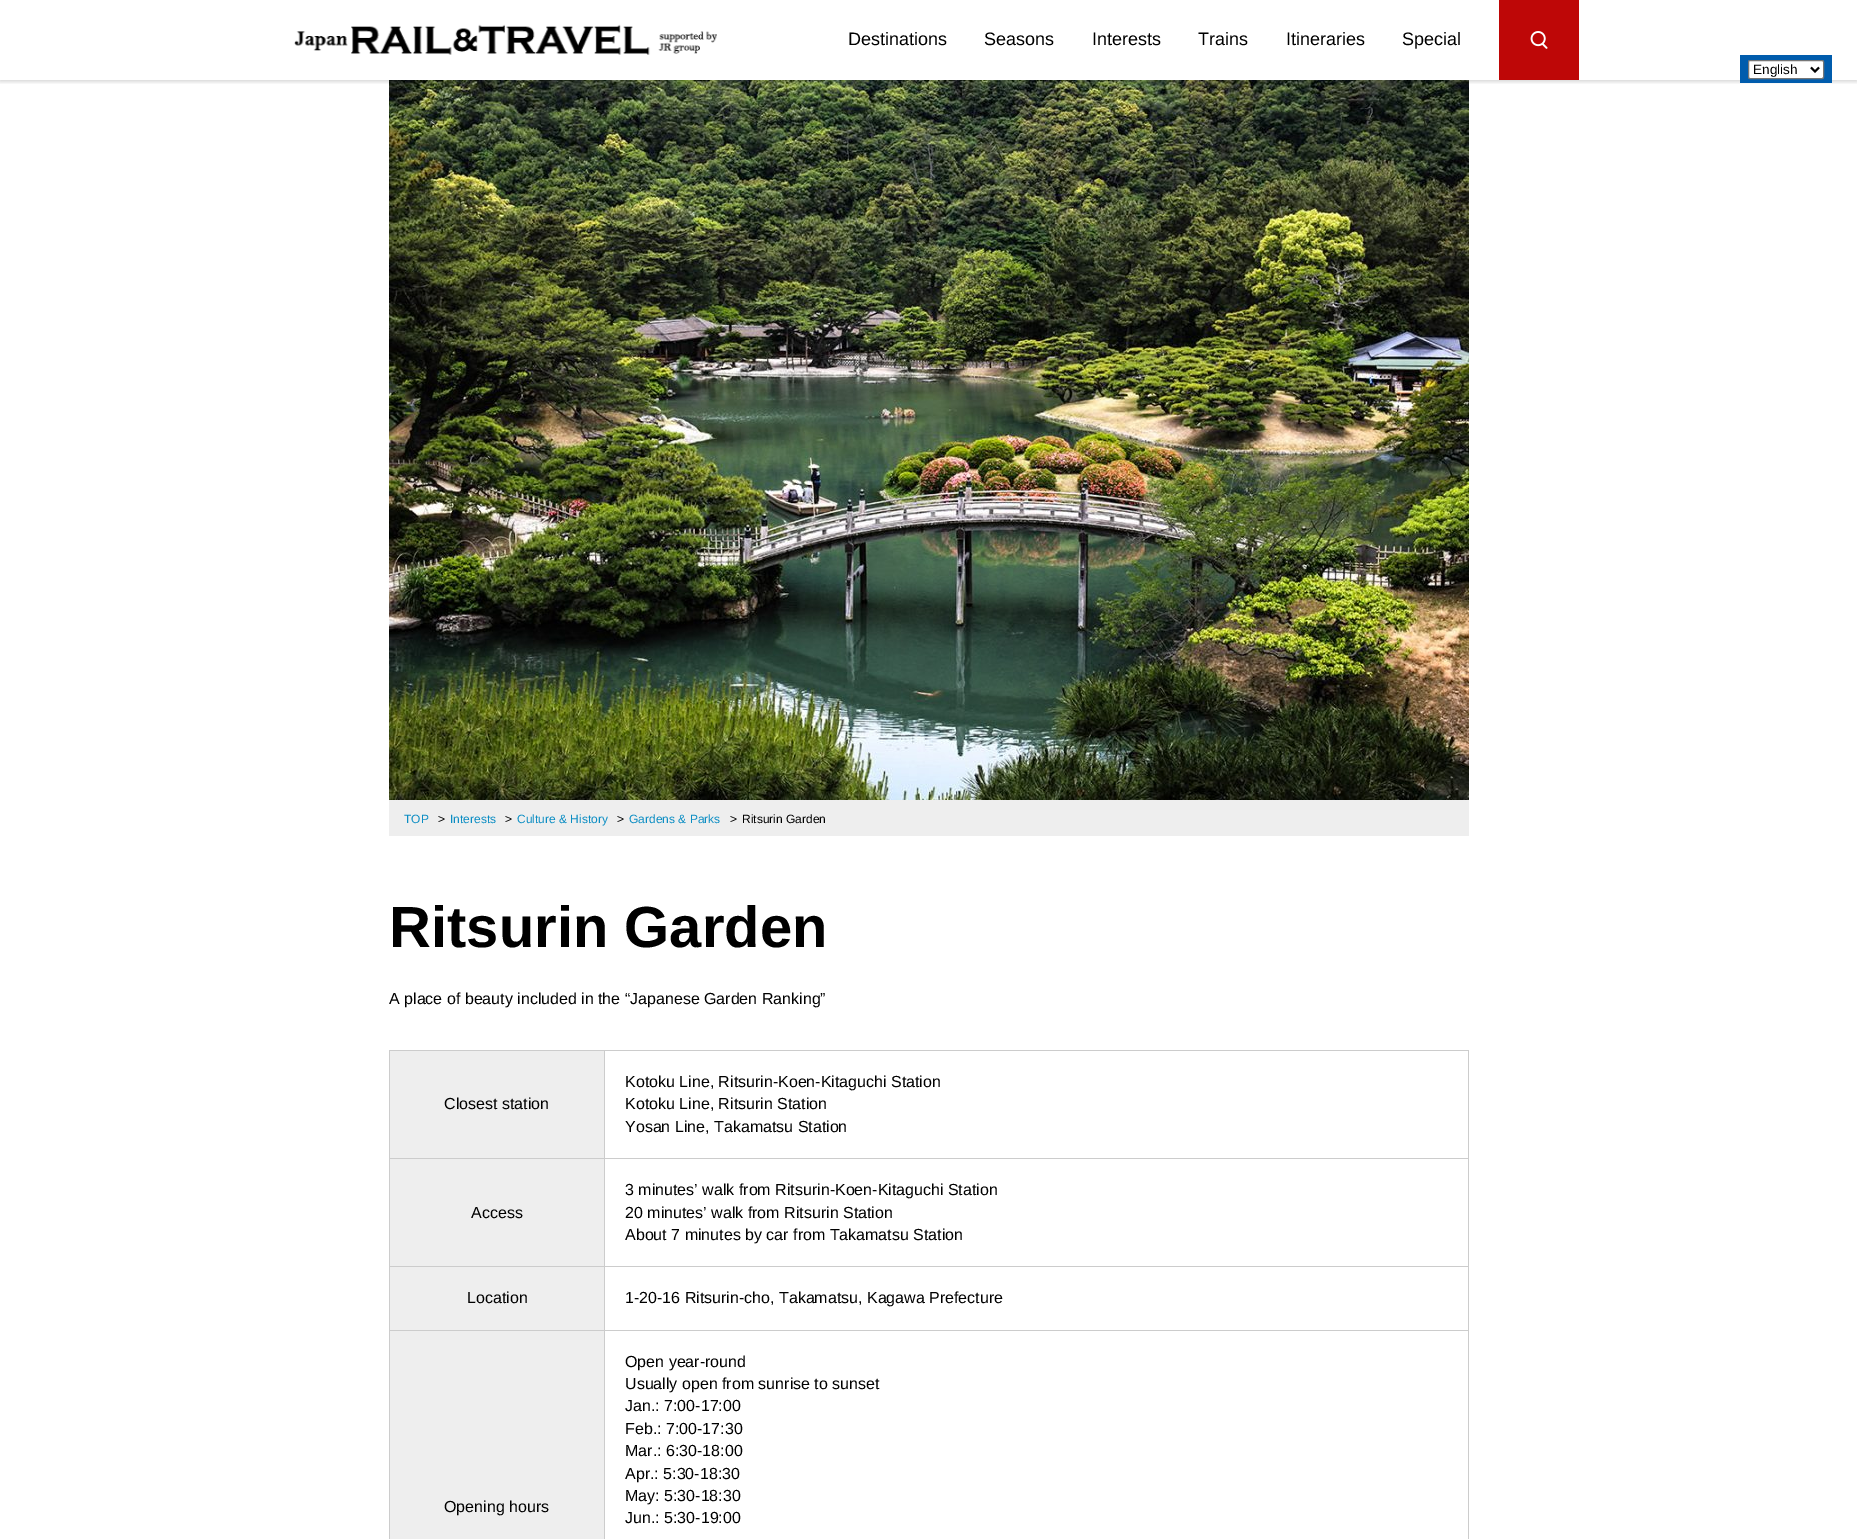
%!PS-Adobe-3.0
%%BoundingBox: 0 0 1857 1539
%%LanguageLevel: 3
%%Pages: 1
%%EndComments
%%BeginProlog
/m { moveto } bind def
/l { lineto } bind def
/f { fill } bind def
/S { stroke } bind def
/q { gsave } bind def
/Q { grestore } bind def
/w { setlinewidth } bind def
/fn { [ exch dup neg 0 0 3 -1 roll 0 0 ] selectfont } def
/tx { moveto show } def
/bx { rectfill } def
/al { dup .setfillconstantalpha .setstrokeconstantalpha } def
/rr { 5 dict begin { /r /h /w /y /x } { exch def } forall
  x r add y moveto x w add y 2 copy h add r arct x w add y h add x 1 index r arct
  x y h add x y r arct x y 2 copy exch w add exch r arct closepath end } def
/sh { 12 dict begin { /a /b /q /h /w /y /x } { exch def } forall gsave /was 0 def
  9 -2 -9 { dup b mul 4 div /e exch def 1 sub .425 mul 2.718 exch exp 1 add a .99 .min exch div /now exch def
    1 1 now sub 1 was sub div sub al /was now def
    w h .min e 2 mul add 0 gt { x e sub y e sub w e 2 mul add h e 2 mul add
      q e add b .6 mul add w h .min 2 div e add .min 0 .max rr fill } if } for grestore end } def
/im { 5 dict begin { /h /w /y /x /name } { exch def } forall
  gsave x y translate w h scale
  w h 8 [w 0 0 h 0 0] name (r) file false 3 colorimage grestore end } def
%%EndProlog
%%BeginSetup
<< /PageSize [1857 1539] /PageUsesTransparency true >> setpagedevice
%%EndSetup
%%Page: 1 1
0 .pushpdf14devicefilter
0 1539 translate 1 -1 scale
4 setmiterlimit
1 setgray
0 0 1857 1539 bx
(image2.raw) 389 80 1080 720 im
q
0 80 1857 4 rectclip
0 setgray
0 1 1857 80 0 2.5 0.2 sh
Q
(image0.raw) 294 24 423 31 im
/LiberationSans-Regular 18 fn
0 setgray
(Destinations) 848 45 tx
(Seasons) 984 45 tx
(Interests) 1092 45 tx
(Trains) 1198 45 tx
(Itineraries) 1286 45 tx
(Special) 1402 45 tx
0.745 0.027 0.027 setrgbcolor
1499 0 80 80 bx
(image1.raw) 1530 31 18 18 im
0 0.361 0.678 setrgbcolor
1740 55 92 28 bx
1 setgray
1748.5 60.5 75 18 1.5 rr q f Q
0.463 setgray
S
0 setgray
2 w
1811 67.5 m 1815 71.5 l 1819 67.5 l S
/LiberationSans-Regular 13.5 fn
(English) 1753 74 tx
0.933 setgray
389 800 1080 36 bx
/LiberationSans-Regular 12 fn
0.043 0.553 0.765 setrgbcolor
(TOP) 404 823 tx
0 setgray
(>) 438 823 tx
0.043 0.553 0.765 setrgbcolor
(Interests) 450 823 tx
0 setgray
(>) 505 823 tx
0.043 0.553 0.765 setrgbcolor
(Culture & History) 517 823 tx
0 setgray
(>) 617 823 tx
0.043 0.553 0.765 setrgbcolor
(Gardens & Parks) 629 823 tx
0 setgray
(>) 730 823 tx
(Ritsurin Garden) 742 823 tx
/LiberationSans-Bold 58 fn
(Ritsurin Garden) 389 947 tx
/LiberationSans-Regular 16 fn
(A place of beauty included in the “Japanese Garden Ranking”) 389 1004 tx
0.8 setgray
389 1050 1080 1 bx
1468 1050 1 108 bx
389 1050 1 108 bx
0.933 setgray
390 1051 214 107 bx
0.8 setgray
604 1051 1 107 bx
0 setgray
(Closest station) 444 1109 tx
(Kotoku Line, Ritsurin-Koen-Kitaguchi Station) 625 1087 tx
(Kotoku Line, Ritsurin Station) 625 1109 tx
(Yosan Line, Takamatsu Station) 625 1132 tx
0.8 setgray
389 1158 1080 1 bx
1468 1158 1 108 bx
389 1158 1 108 bx
0.933 setgray
390 1159 214 107 bx
0.8 setgray
604 1159 1 107 bx
0 setgray
(Access) 471 1218 tx
(3 minutes’ walk from Ritsurin-Koen-Kitaguchi Station) 625 1195 tx
(20 minutes’ walk from Ritsurin Station) 625 1218 tx
(About 7 minutes by car from Takamatsu Station) 625 1240 tx
0.8 setgray
389 1266 1080 1 bx
1468 1266 1 64 bx
389 1266 1 64 bx
0.933 setgray
390 1267 214 63 bx
0.8 setgray
604 1267 1 63 bx
0 setgray
(Location) 467 1303 tx
(1-20-16 Ritsurin-cho, Takamatsu, Kagawa Prefecture) 625 1303 tx
0.8 setgray
389 1330 1080 1 bx
1468 1330 1 209 bx
389 1330 1 209 bx
0.933 setgray
390 1331 214 208 bx
0.8 setgray
604 1331 1 208 bx
0 setgray
(Opening hours) 444 1512 tx
(Open year-round) 625 1367 tx
(Usually open from sunrise to sunset) 625 1389 tx
(Jan.: 7:00-17:00) 625 1411 tx
(Feb.: 7:00-17:30) 625 1434 tx
(Mar.: 6:30-18:00) 625 1456 tx
(Apr.: 5:30-18:30) 625 1479 tx
(May: 5:30-18:30) 625 1501 tx
(Jun.: 5:30-19:00) 625 1523 tx
.poppdf14devicefilter showpage
%%EOF
